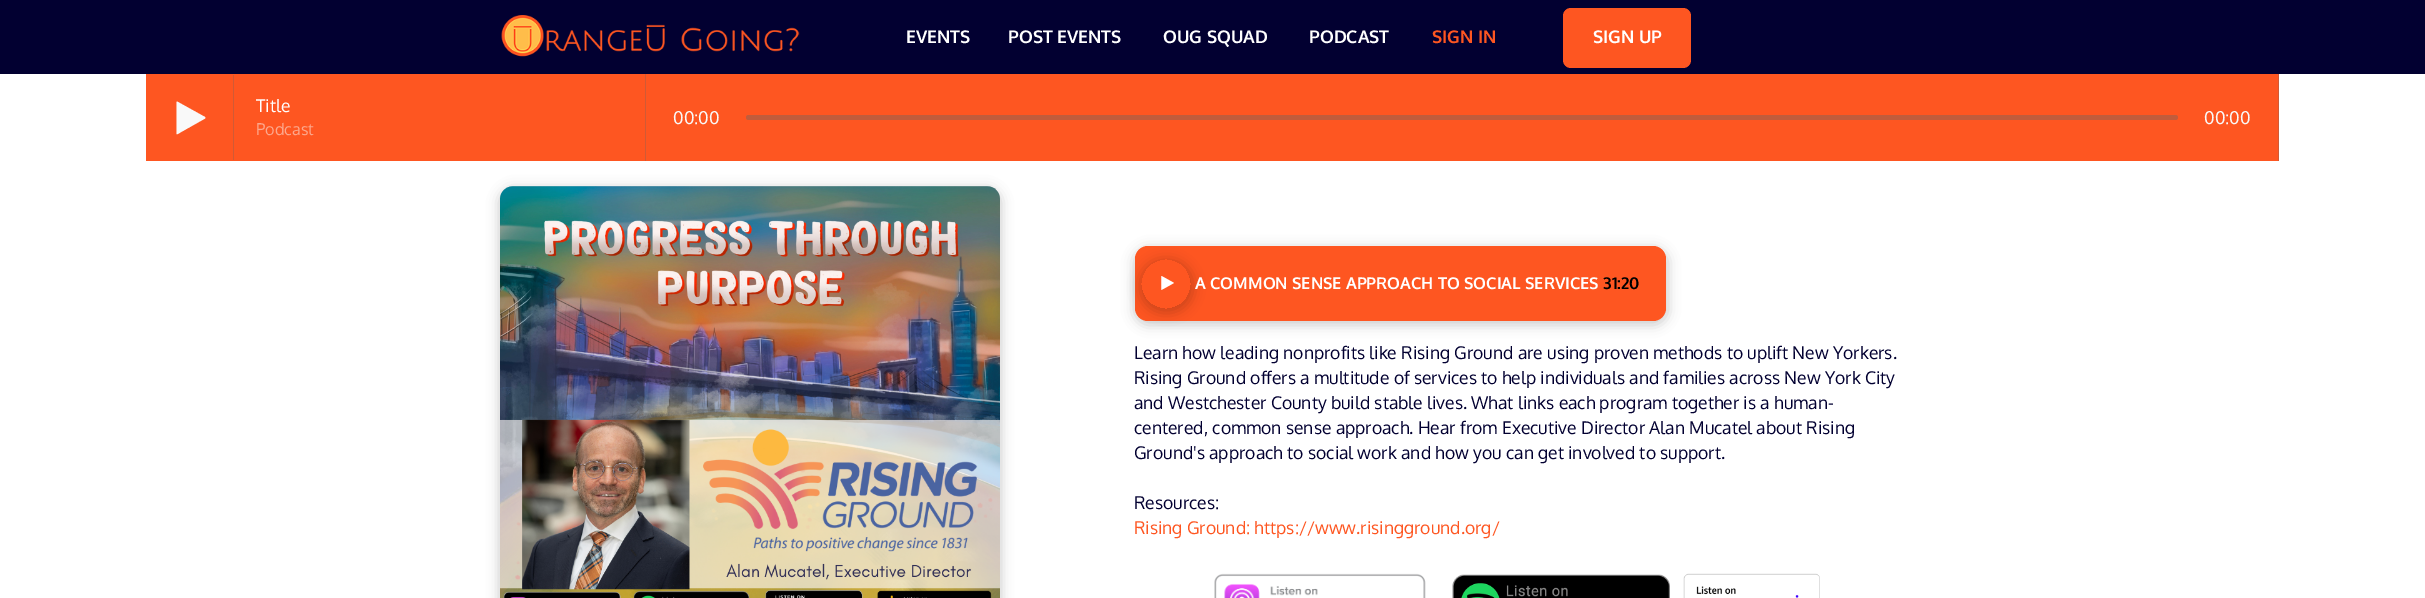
%!PS-Adobe-3.0
%%BoundingBox: 0 0 2425 598
%%LanguageLevel: 3
%%Pages: 1
%%EndComments
%%BeginProlog
/m { moveto } bind def
/l { lineto } bind def
/c { curveto } bind def
/h { closepath } bind def
/f { fill } bind def
/q { gsave } bind def
/Q { grestore } bind def
/fn { [ exch dup neg 0 0 3 -1 roll 0 0 ] selectfont } def
/tx { moveto show } def
/bx { rectfill } def
/al { dup .setfillconstantalpha .setstrokeconstantalpha } def
/rr { 5 dict begin { /r /h /w /y /x } { exch def } forall
  x r add y moveto x w add y 2 copy h add r arct x w add y h add x 1 index r arct
  x y h add x y r arct x y 2 copy exch w add exch r arct closepath end } def
/sh { 12 dict begin { /a /b /q /h /w /y /x } { exch def } forall gsave /was 0 def
  9 -2 -9 { dup b mul 4 div /e exch def 1 sub .425 mul 2.718 exch exp 1 add a .99 .min exch div /now exch def
    1 1 now sub 1 was sub div sub al /was now def
    w h .min e 2 mul add 0 gt { x e sub y e sub w e 2 mul add h e 2 mul add
      q e add b .6 mul add w h .min 2 div e add .min 0 .max rr fill } if } for grestore end } def
/im { 5 dict begin { /h /w /y /x /name } { exch def } forall
  gsave x y translate w h scale
  w h 8 [w 0 0 h 0 0] name (r) file false 3 colorimage grestore end } def
%%EndProlog
%%BeginSetup
<< /PageSize [2425 598] /PageUsesTransparency true >> setpagedevice
%%EndSetup
%%Page: 1 1
0 .pushpdf14devicefilter
0 598 translate 1 -1 scale
4 setmiterlimit
1 setgray
0 0 2425 598 bx
0.008 0 0.192 setrgbcolor
0 0 2425 74 bx
(image0.raw) 501 15 299 42 im
/Oxygen-Bold 17.5 fn
1 setgray
(EVENTS) 906 43 tx
(POST EVENTS) 1008 43 tx
(OUG SQUAD) 1163 43 tx
(PODCAST) 1309 43 tx
0.996 0.337 0.129 setrgbcolor
(SIGN IN) 1432 43 tx
1563 8 128 60 8 rr f
1 setgray
(SIGN UP) 1593 43 tx
0.996 0.337 0.129 setrgbcolor
146 74 2132 87 bx
0.816 0.353 0.208 setrgbcolor
645 74 1 87 bx
233 75 1 85 bx
0.976 setgray
205 118.5 m 182 131.5 l 181.5 131.5 177 135 176.5 134 c 176.5 102 l 177 101.5 l 205 117 l 205.5 118 l h f
/Oxygen-Regular 17.5 fn
1 setgray
(Title) 256 112 tx
/Oxygen-Regular 16.25 fn
0.988 0.659 0.553 setrgbcolor
(Podcast) 256 135 tx
0.816 0.353 0.208 setrgbcolor
2278 74 1 87 bx
/Oxygen-Regular 17.5 fn
0.976 setgray
(00:00) 673 124 tx
0.753 0.361 0.235 setrgbcolor
746 115 1432 5 2.5 rr f
0.976 setgray
(00:00) 2204 124 tx
0 setgray
499 188 502 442 14 6 0.2 sh
0.2 al
500 186 500 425 13 rr f
1 al
(image1.raw) 500 186 500 412 im
1134 248 534 77 14 6 0.2 sh
0.996 0.337 0.129 setrgbcolor
1135 246 531 75 13 rr f
q
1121 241 m 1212 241 l 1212 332 l 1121 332 l h 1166 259 m 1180 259 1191 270 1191 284 c 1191 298 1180 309 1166 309 c 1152 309 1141 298 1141 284 c 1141 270 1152 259 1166 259 c h eoclip newpath
0 setgray
1140 260 53 53 26.5 6 0.2 sh
Q
(image2.raw) 1161 276 13 14 im
/Oxygen-Bold 16.25 fn
1 setgray
(A COMMON SENSE APPROACH TO SOCIAL SERVICES) 1195 289 tx
0 setgray
(31:20) 1603 289 tx
/Oxygen-Regular 17.5 fn
0.008 0 0.192 setrgbcolor
(Learn how leading nonprofits like Rising Ground are using proven methods to uplift New Yorkers.) 1134 359 tx
(Rising Ground offers a multitude of services to help individuals and families across New York City) 1134 384 tx
(and Westchester County build stable lives. What links each program together is a human-) 1134 409 tx
(centered, common sense approach. Hear from Executive Director Alan Mucatel about Rising) 1134 434 tx
(Ground's approach to social work and how you can get involved to support.) 1134 459 tx
(Resources:) 1134 509 tx
0.996 0.337 0.129 setrgbcolor
(Rising Ground: https://www.risingground.org/) 1134 534 tx
(image3.raw) 1214 573 212 25 im
(image4.raw) 1452 574 218 24 im
(image5.raw) 1683 573 137 25 im
.poppdf14devicefilter showpage
%%EOF
